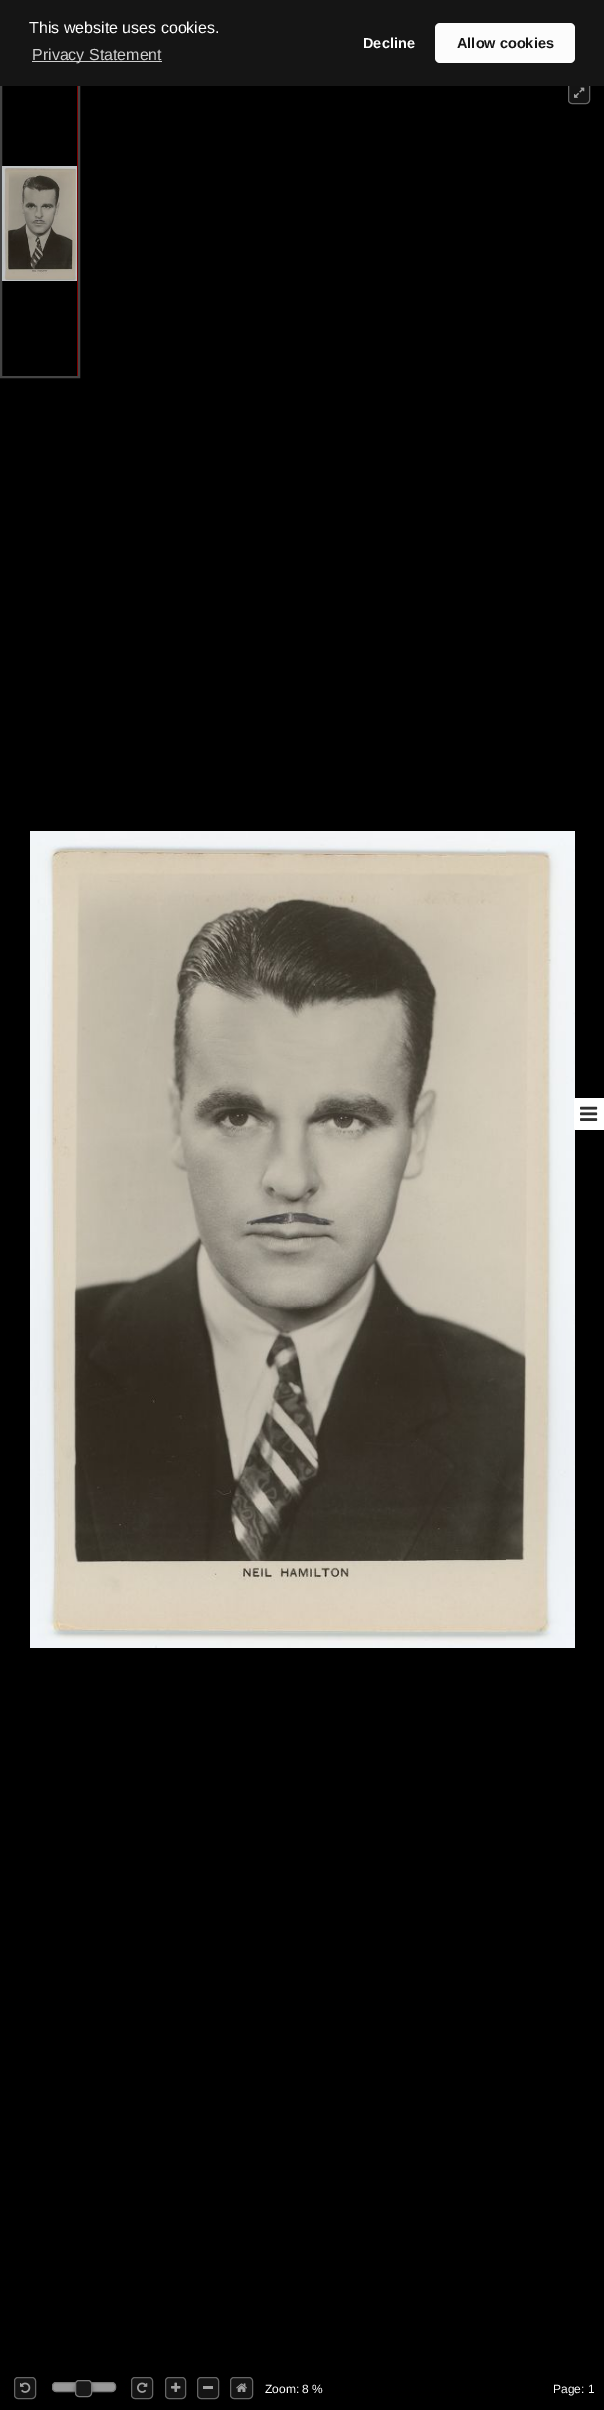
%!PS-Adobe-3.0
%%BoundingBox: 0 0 604 2410
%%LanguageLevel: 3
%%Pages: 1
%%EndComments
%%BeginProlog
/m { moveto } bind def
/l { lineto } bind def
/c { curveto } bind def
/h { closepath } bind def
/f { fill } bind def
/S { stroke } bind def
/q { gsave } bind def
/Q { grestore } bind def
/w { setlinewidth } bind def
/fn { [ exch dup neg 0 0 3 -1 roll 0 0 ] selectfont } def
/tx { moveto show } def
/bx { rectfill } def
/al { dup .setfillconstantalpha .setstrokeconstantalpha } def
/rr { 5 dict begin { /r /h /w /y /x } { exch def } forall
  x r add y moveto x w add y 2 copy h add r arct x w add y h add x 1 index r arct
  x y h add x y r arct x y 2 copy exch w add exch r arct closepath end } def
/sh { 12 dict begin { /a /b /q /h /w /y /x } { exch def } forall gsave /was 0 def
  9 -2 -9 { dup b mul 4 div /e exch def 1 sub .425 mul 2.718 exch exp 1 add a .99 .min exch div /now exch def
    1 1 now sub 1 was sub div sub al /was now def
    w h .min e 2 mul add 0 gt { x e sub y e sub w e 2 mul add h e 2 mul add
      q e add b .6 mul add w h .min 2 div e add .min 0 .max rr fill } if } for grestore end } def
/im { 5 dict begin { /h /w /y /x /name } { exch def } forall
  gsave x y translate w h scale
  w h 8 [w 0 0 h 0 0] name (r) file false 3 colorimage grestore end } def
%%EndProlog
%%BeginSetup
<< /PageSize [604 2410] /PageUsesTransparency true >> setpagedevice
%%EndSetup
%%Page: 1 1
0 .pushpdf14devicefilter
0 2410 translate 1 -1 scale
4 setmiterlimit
0 setgray
0 0 604 2410 bx
0.267 setgray
2 w
1 69 78 308 rectstroke
(image1.raw) 2 166 75 115 im
q
2 70 76 306 rectclip
0.478 0 0 setrgbcolor
-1 60 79 322 rectstroke
Q
0.078 setgray
568.5 82.5 21 21 3.5 rr q f Q
0.392 setgray
1 w
S
0.082 setgray
0 0 604 86 bx
/LiberationSans-Regular 16 fn
1 setgray
(This website uses cookies.) 29 33 tx
0.808 setgray
32 61 130 1 bx
(Privacy Statement) 32 60 tx
/LiberationSans-Bold 14.5 fn
1 setgray
(Decline) 363 48 tx
0.988 setgray
435 23 140 40 5 rr f
0.082 setgray
(Allow cookies) 457 48 tx
(image2.raw) 30 831 545 817 im
1 setgray
576 1098 m 604 1098 l 604 1130 l 576 1130 l 575 1130 574 1129 574 1128 c 574 1100 l 574 1099 575 1098 576 1098 c h f
(image0.raw) 580 1106 18 15 im
(image3.raw) 574 87 11 11 im
0.078 setgray
14.5 2377.5 21 21 3.5 rr q f Q
0.392 setgray
S
(image4.raw) 20 2382 11 11 im
0.6 setgray
52.5 2382.5 63 9 3.5 rr q f Q
0.463 setgray
S
0 setgray
75 2384 17 17 4 2.5 0.35 sh
0.098 setgray
75.5 2380.5 16 16 3.5 rr q f Q
0.463 setgray
S
0.078 setgray
131.5 2377.5 21 21 3.5 rr q f Q
0.392 setgray
S
(image5.raw) 137 2382 11 11 im
0.078 setgray
165.5 2377.5 20 21 3.5 rr q f Q
0.392 setgray
S
(image6.raw) 171 2382 10 10 im
0.078 setgray
197.5 2377.5 21 21 3.5 rr q f Q
0.392 setgray
S
0.631 setgray
203 2386 10 3 bx
0.078 setgray
230.5 2377.5 22 21 3.5 rr q f Q
0.392 setgray
S
(image7.raw) 236 2383 11 9 im
/LiberationSans-Regular 12 fn
1 setgray
(Zoom: 8 %) 265 2393 tx
(Page: 1) 553 2393 tx
.poppdf14devicefilter showpage
%%EOF
